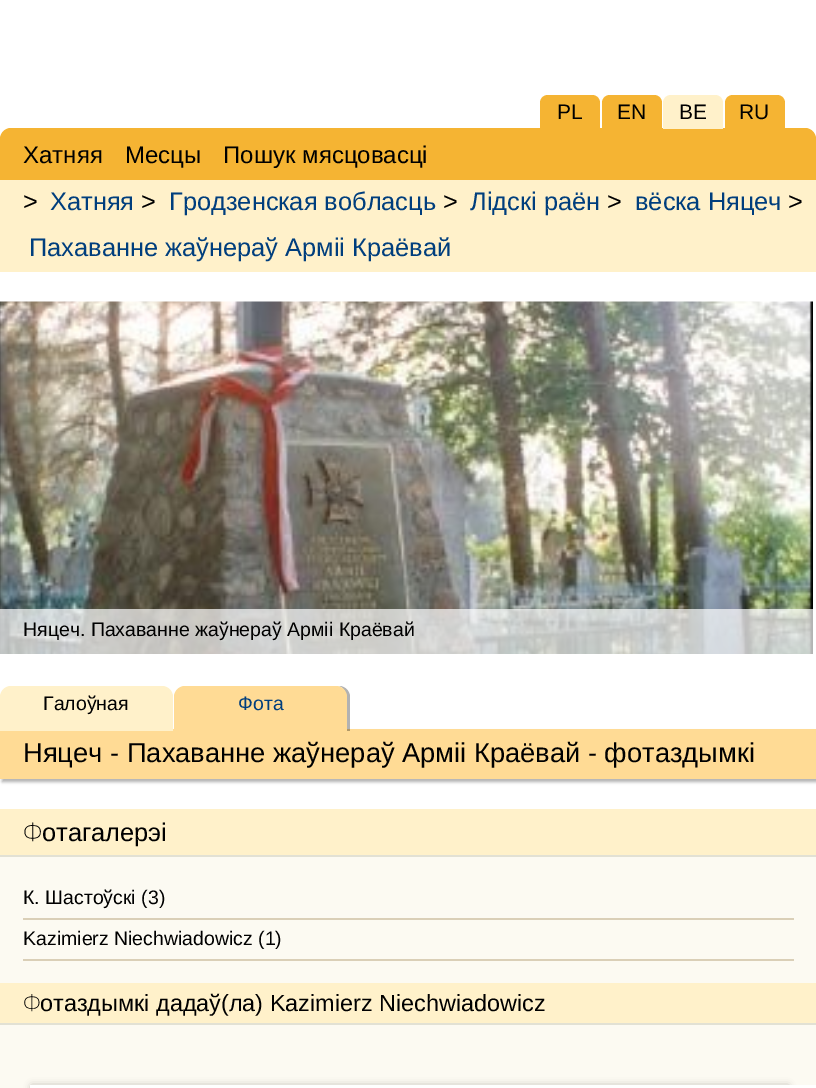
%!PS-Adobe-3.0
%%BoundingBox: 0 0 816 1088
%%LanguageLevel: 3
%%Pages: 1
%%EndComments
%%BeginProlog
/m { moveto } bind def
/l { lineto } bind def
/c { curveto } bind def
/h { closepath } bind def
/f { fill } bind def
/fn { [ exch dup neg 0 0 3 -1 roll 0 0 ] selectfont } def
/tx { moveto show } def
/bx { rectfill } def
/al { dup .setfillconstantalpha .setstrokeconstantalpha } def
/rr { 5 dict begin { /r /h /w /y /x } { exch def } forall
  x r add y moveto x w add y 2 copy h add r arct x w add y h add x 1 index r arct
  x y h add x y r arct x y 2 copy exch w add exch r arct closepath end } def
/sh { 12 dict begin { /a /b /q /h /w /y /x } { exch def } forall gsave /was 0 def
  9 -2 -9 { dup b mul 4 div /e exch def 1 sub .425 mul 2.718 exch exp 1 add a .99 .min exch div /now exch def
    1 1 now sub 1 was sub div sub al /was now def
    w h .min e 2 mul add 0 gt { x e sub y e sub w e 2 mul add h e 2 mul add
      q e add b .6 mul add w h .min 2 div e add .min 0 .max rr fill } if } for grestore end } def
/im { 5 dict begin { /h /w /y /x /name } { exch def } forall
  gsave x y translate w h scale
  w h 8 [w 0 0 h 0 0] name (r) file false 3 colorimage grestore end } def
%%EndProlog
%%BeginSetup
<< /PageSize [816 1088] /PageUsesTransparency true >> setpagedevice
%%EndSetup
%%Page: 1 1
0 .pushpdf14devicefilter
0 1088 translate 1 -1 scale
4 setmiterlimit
1 setgray
0 0 816 1088 bx
0.961 0.706 0.2 setrgbcolor
11 128 m 805 128 l 811 128 816 133 816 139 c 816 180 l 0 180 l 0 139 l 0 133 5 128 11 128 c h f
548 95 m 592 95 l 596.5 95 600 98.5 600 103 c 600 129 l 540 129 l 540 103 l 540 98.5 543.5 95 548 95 c h f
/LiberationSans-Regular 21 fn
0 setgray
(PL) 557 119 tx
0.961 0.706 0.2 setrgbcolor
610 95 m 654 95 l 658.5 95 662 98.5 662 103 c 662 129 l 602 129 l 602 103 l 602 98.5 605.5 95 610 95 c h f
0 setgray
(EN) 617 119 tx
1 0.945 0.792 setrgbcolor
671 95 m 715 95 l 719.5 95 723 98.5 723 103 c 723 129 l 663 129 l 663 103 l 663 98.5 666.5 95 671 95 c h f
0 setgray
(BE) 679 119 tx
0.961 0.706 0.2 setrgbcolor
733 95 m 777 95 l 781.5 95 785 98.5 785 103 c 785 129 l 725 129 l 725 103 l 725 98.5 728.5 95 733 95 c h f
0 setgray
(RU) 739 119 tx
/LiberationSans-Regular 24 fn
(Хатняя) 23 163 tx
(Месцы) 125 163 tx
(Пошук мясцовасці) 223 163 tx
1 0.945 0.792 setrgbcolor
0 180 816 92 bx
/LiberationSans-Regular 25.4 fn
0 setgray
(>) 23 210 tx
0 0.243 0.49 setrgbcolor
(Хатняя) 50 210 tx
0 setgray
(>) 141 210 tx
0 0.243 0.49 setrgbcolor
(Гродзенская вобласць) 169 210 tx
0 setgray
(>) 443 210 tx
0 0.243 0.49 setrgbcolor
(Лідскі раён) 470 210 tx
0 setgray
(>) 607 210 tx
0 0.243 0.49 setrgbcolor
(вёска Няцеч) 635 210 tx
0 setgray
(>) 788 210 tx
0 0.243 0.49 setrgbcolor
(Пахаванне жаўнераў Арміі Краёвай) 29 256 tx
(image0.raw) 0 301 813 353 im
0.7 al
1 setgray
0 609 813 45 bx
/LiberationSans-Regular 19.5 fn
1 al
0 setgray
(Няцеч. Пахаванне жаўнераў Арміі Краёвай) 23 636 tx
2 732 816 50 0 1.5 0.3 sh
1 0.859 0.584 setrgbcolor
0 729 816 50 bx
1 0.945 0.792 setrgbcolor
11 686 m 162 686 l 168 686 173 691 173 697 c 173 731 l 0 731 l 0 697 l 0 691 5 686 11 686 c h f
0 setgray
(Галоўная) 43 710 tx
0.3 al
177 730 m 177 731 l 350 731 l 350 697 l 350 691 345 686 339 686 c 343 687 346 691 346 696 c 346 730 l h f
1 al
1 0.859 0.584 setrgbcolor
185 686 m 336 686 l 342 686 347 691 347 697 c 347 731 l 174 731 l 174 697 l 174 691 179 686 185 686 c h f
0 0.243 0.49 setrgbcolor
(Фота) 238 710 tx
/LiberationSans-Regular 27.3 fn
0 setgray
(Няцеч - Пахаванне жаўнераў Арміі Краёвай - фотаздымкі) 23 762 tx
1 0.945 0.792 setrgbcolor
0 809 816 46 bx
0.886 0.882 0.831 setrgbcolor
0 855 816 2 bx
/NotoSans-ExtraLight 25.4 fn
0 setgray
(Ф) 23 841 tx
/LiberationSans-Regular 25.4 fn
(отагалерэі) 42 841 tx
0.988 0.98 0.949 setrgbcolor
0 857 816 126 bx
0.855 0.812 0.718 setrgbcolor
23 918 771 2 bx
/LiberationSans-Regular 19.5 fn
0 setgray
(К. Шастоўскі \(3\)) 23 904 tx
0.855 0.812 0.718 setrgbcolor
23 959 771 2 bx
0 setgray
(Kazimierz Niechwiadowicz \(1\)) 23 945 tx
1 0.945 0.792 setrgbcolor
0 983 816 40 bx
0.886 0.882 0.831 setrgbcolor
0 1023 816 2 bx
/NotoSans-ExtraLight 23.4 fn
0 setgray
(Ф) 23 1011 tx
/LiberationSans-Regular 23.4 fn
(отаздымкі дадаў\(ла\) Kazimierz Niechwiadowicz) 40 1011 tx
0.988 0.98 0.949 setrgbcolor
0 1025 816 63 bx
0 setgray
32 1086 756 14 0 4 0.3 sh
1 setgray
30 1085 786 3 bx
.poppdf14devicefilter showpage
%%EOF
